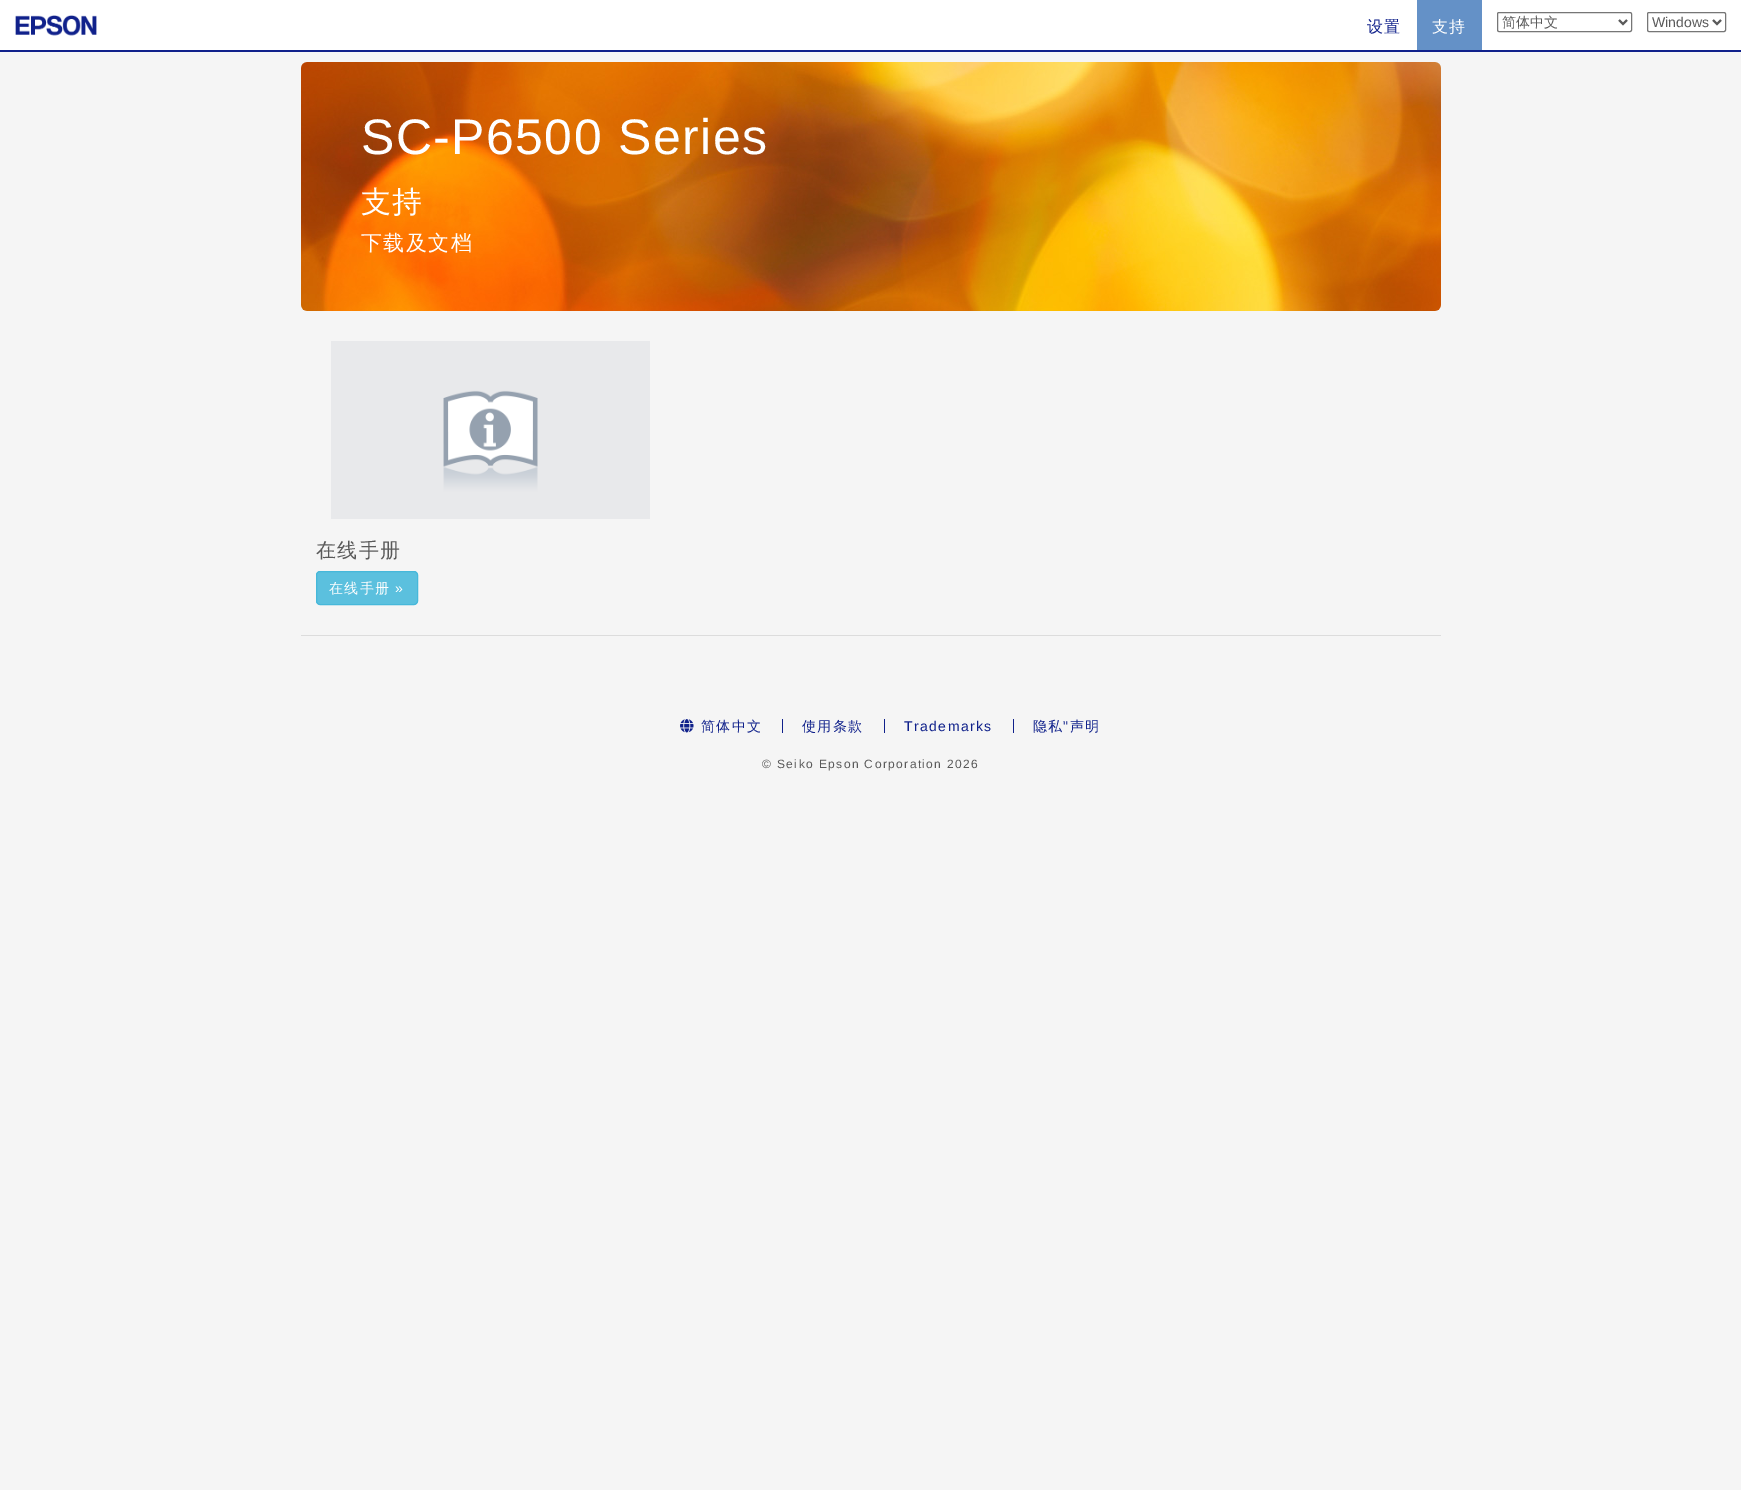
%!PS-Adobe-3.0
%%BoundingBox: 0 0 1741 1490
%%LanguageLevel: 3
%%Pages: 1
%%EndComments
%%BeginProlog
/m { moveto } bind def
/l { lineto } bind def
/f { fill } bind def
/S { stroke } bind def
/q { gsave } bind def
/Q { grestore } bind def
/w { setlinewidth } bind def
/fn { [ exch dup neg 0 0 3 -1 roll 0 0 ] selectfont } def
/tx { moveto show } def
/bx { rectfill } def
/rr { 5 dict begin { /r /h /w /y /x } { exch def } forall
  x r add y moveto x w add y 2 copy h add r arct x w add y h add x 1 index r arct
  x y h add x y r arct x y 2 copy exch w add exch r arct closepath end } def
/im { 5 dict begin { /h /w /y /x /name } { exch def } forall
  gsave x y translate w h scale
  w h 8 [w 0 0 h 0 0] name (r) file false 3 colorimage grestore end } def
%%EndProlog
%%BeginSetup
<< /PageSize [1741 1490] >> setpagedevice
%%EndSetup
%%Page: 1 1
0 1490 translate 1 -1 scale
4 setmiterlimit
0.961 setgray
0 0 1741 1490 bx
1 setgray
0 0 1741 50 bx
0.063 0.129 0.545 setrgbcolor
0 50 1741 2 bx
(image0.raw) 15 15 82 21 im
/WenQuanYiZenHei-Medium 16 fn
1367 32 m 1.4 0 (设置) ashow
0.392 0.569 0.78 setrgbcolor
1417 0 65 50 bx
1 setgray
1432 32 m 1.4 0 (支持) ashow
0.463 setgray
1497.5 12.5 134 19 1.5 rr S
0.353 setgray
2 w
1619 20 m 1623 24 l 1627 20 l S
/WenQuanYiZenHei-Medium 14 fn
(简体中文) 1502 27 tx
0.463 setgray
1 w
1647.5 12.5 78 19 1.5 rr S
0.353 setgray
2 w
1713 20 m 1717 24 l 1721 20 l S
/LiberationSans-Regular 14 fn
(Windows) 1652 27 tx
(image1.raw) 301 62 1140 249 im
/LiberationSans-Regular 50 fn
1 setgray
361 154 m 1.4 0 (SC-P6500 Series) ashow
/WenQuanYiZenHei-Medium 30 fn
361 212 m 1.4 0 (支持) ashow
/WenQuanYiZenHei-Medium 21 fn
361 250 m 1.4 0 (下载及文档) ashow
(image2.raw) 331 341 319 178 im
/WenQuanYiZenHei-Medium 20 fn
0.353 setgray
316 557 m 1.4 0 (在线手册) ashow
0.357 0.753 0.871 setrgbcolor
316.5 571.5 101 33 3.5 rr q f Q
0.275 0.722 0.855 setrgbcolor
1 w
S
/WenQuanYiZenHei-Medium 14 fn
1 setgray
329 593 m 1.4 0 (在线手册) ashow
/LiberationSans-Regular 14 fn
395 593 m 1.4 0 (») ashow
0.863 setgray
301 635 1140 1 bx
(image3.raw) 680 719 14 14 im
/WenQuanYiZenHei-Medium 14 fn
0.063 0.129 0.545 setrgbcolor
701 731 m 1.4 0 (简体中文) ashow
782 719 1 14 bx
802 731 m 1.4 0 (使用条款) ashow
884 719 1 14 bx
/LiberationSans-Regular 14 fn
904 731 m 1.4 0 (Trademarks) ashow
1013 719 1 14 bx
/WenQuanYiZenHei-Medium 14 fn
1033 731 m 1.4 0 (隐私) ashow
/LiberationSans-Regular 14 fn
1063 731 m 1.4 0 (") ashow
/WenQuanYiZenHei-Medium 14 fn
1070 731 m 1.4 0 (声明) ashow
/LiberationSans-Regular 12 fn
0.353 setgray
762 768 m 1.4 0 (© Seiko Epson Corporation 2026) ashow
showpage
%%EOF
